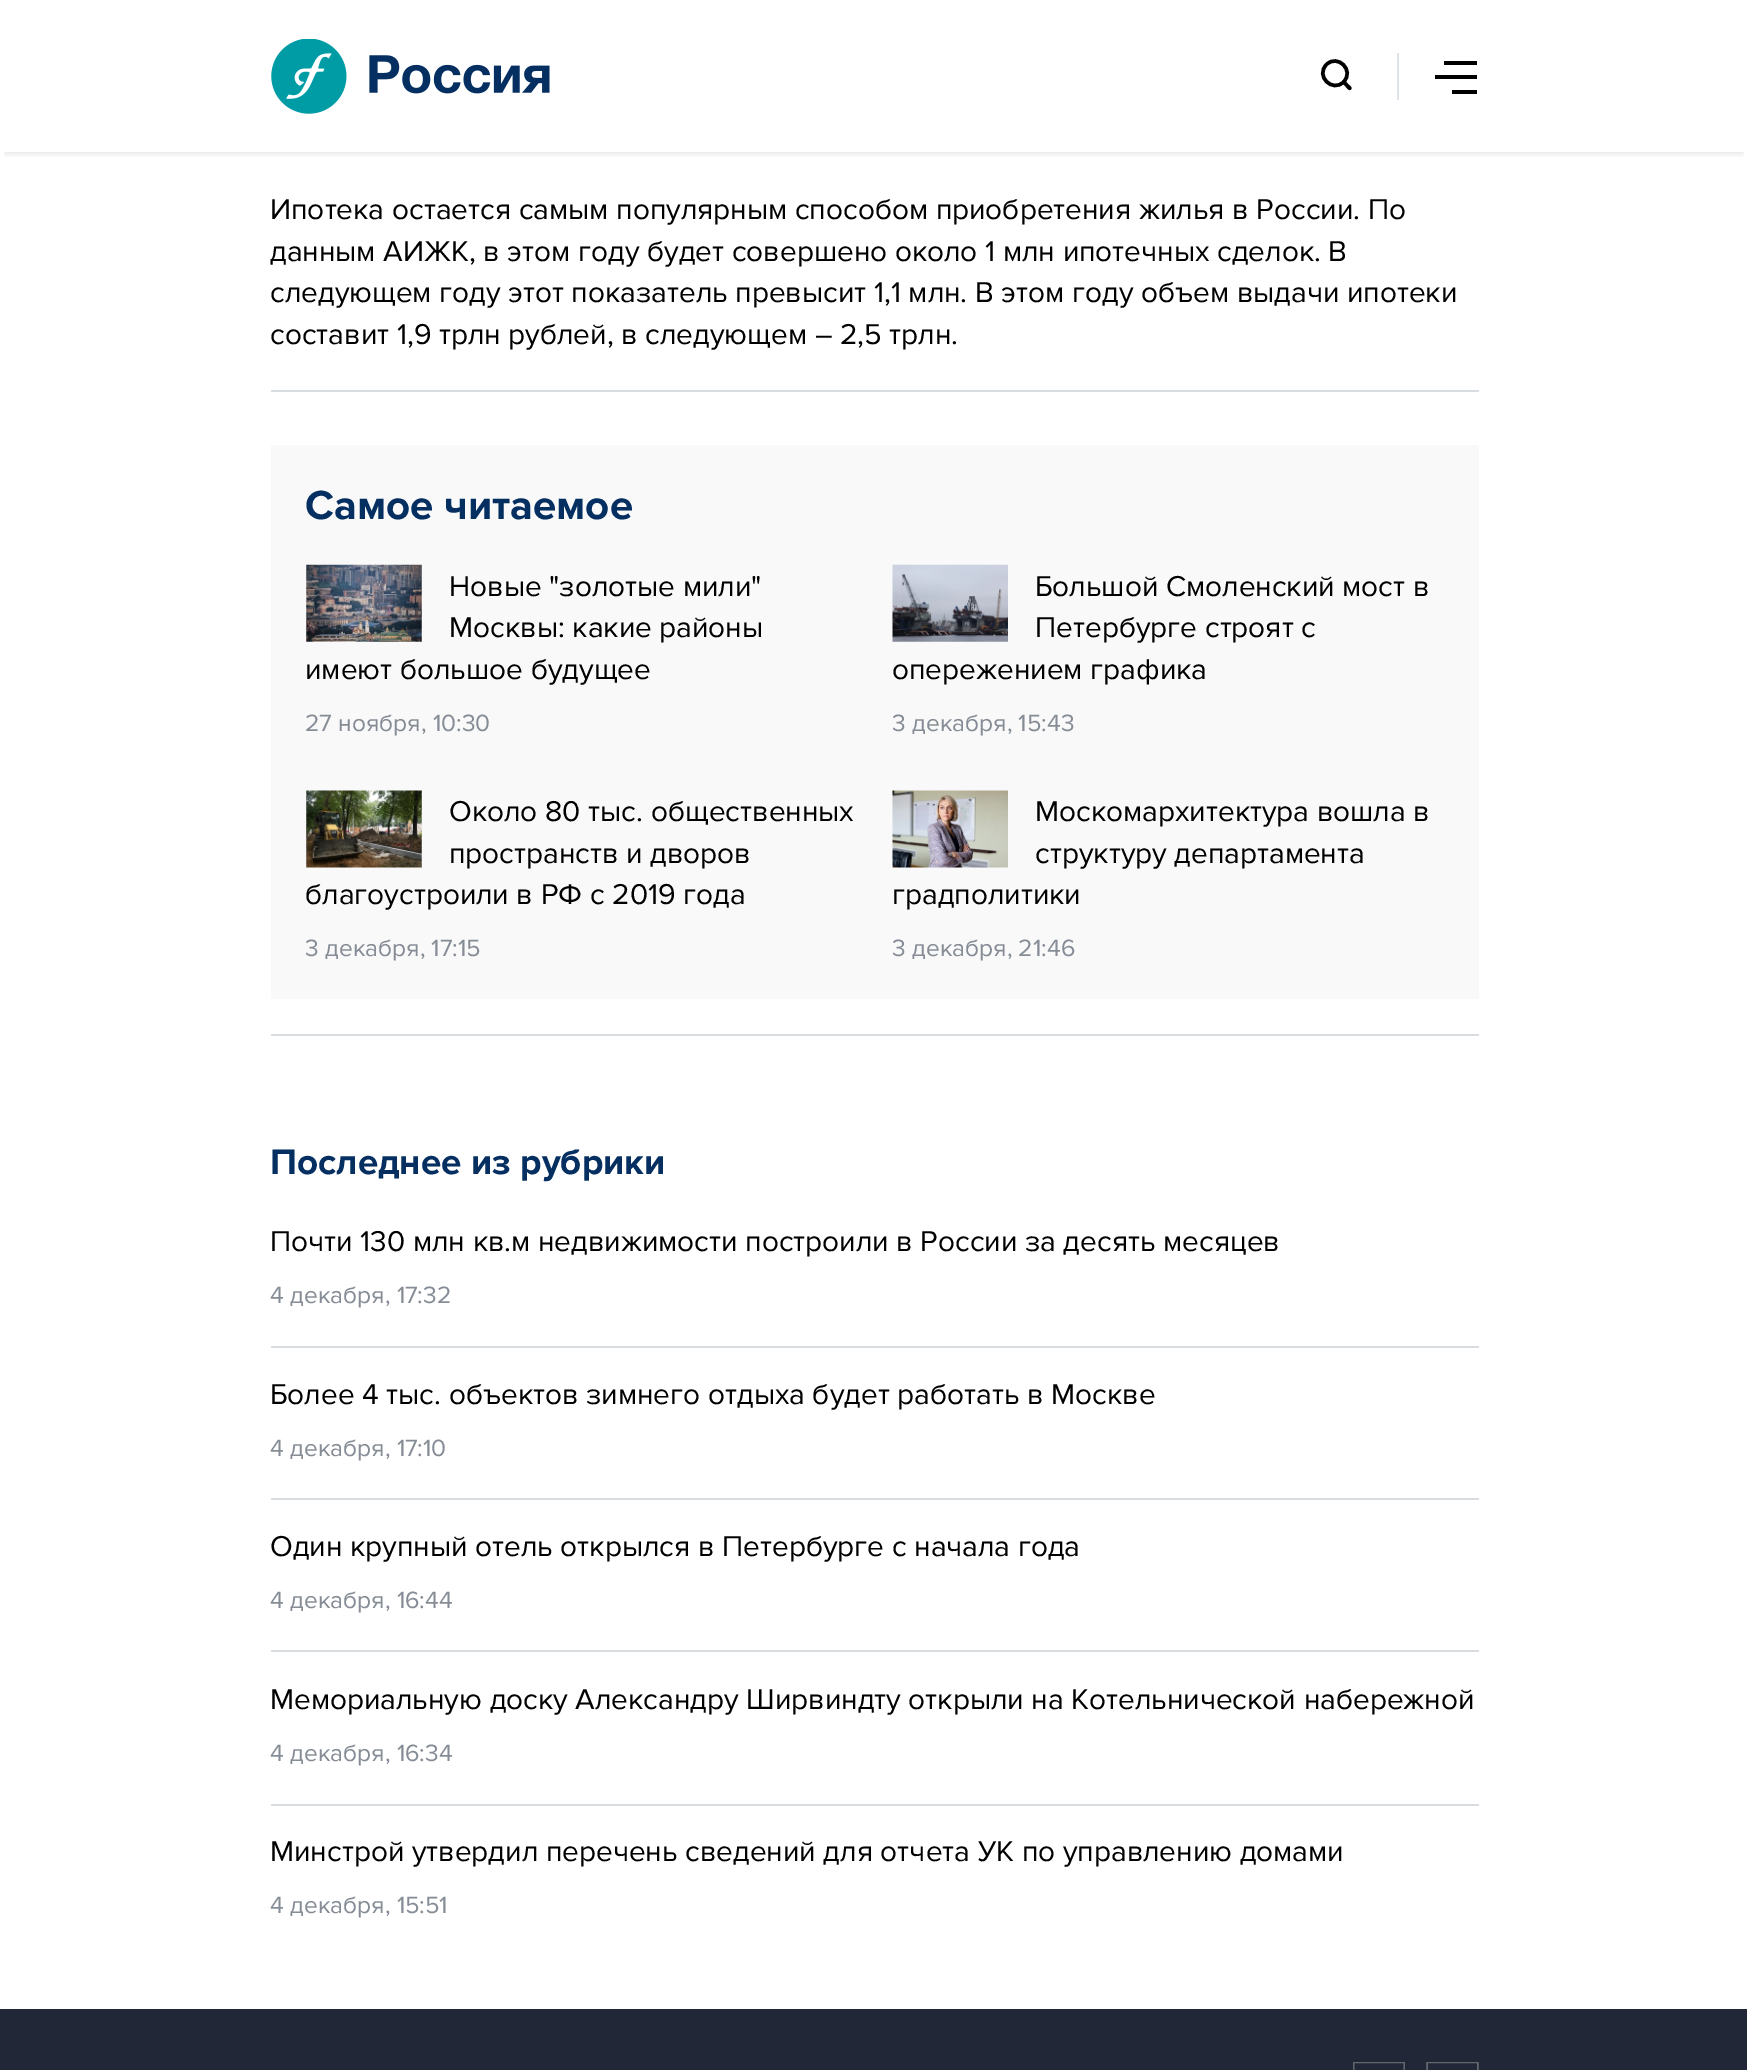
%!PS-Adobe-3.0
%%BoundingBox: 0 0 1747 2070
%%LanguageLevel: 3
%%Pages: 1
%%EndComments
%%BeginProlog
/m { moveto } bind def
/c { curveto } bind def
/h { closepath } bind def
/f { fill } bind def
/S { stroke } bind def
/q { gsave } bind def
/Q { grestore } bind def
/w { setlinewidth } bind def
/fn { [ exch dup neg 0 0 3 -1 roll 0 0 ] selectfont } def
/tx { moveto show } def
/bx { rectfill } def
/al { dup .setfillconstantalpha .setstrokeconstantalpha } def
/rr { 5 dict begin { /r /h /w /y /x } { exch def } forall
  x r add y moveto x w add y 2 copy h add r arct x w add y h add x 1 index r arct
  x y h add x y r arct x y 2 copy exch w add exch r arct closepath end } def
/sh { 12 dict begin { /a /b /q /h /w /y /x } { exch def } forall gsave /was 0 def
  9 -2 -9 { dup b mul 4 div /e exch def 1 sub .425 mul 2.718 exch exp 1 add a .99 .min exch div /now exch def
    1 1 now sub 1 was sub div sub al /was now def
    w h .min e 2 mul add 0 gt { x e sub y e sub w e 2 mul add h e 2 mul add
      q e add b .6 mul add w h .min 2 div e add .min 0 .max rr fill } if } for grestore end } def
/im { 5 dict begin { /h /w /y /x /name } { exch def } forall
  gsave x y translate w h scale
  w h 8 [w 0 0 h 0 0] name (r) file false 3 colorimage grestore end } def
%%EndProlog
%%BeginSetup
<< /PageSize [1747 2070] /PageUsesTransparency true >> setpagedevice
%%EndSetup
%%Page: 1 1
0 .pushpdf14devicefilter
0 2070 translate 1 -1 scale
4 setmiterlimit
1 setgray
0 0 1747 2070 bx
q
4 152 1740 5 rectclip
0 setgray
5 12 1738 142 0 3.5 0.1 sh
Q
(image0.raw) 271 39 279 75 im
0.871 0.886 0.914 setrgbcolor
1397 53 2 47 bx
0 setgray
3.5 w
1326.5 64.5 m 1337.5 53.5 1355 70.5 1343.5 82 c 1332.5 93 1315 76 1326.5 64.5 c h S
1342.5 80.5 m 1344.5 79 1347 83 1348 84 c 1349 85 1353 87.5 1351 89.5 c 1349 91.5 1346.5 87.5 1345.5 86.5 c 1344.5 85 1340.5 82.5 1342.5 80.5 c h f
1444 61 33 4 bx
1435 75 42 4 bx
1452 90 25 4 bx
0.851 0.863 0.878 setrgbcolor
271 390 1208 2 bx
/ProximaNova-Regular 29.75 fn
0 setgray
(Ипотека остается самым популярным способом приобретения жилья в России. По) 270 219 tx
(данным АИЖК, в этом году будет совершено около 1 млн ипотечных сделок. В) 270 261 tx
(следующем году этот показатель превысит 1,1 млн. В этом году объем выдачи ипотеки) 270 302 tx
(составит 1,9 трлн рублей, в следующем – 2,5 трлн.) 270 344 tx
0.851 0.863 0.878 setrgbcolor
271 1034 1208 2 bx
0.976 setgray
271 445 1208 554 bx
/ProximaNova-Bold 42 fn
0.016 0.184 0.376 setrgbcolor
(Самое читаемое) 305 519 tx
(image1.raw) 306 564 116 78 im
/ProximaNova-Regular 29.75 fn
0 setgray
(Новые "золотые мили") 449 596 tx
(Москвы: какие районы) 449 637 tx
(имеют большое будущее) 305 679 tx
/ProximaNova-Regular 24.5 fn
0.522 0.549 0.584 setrgbcolor
(27 ноября, 10:30) 305 731 tx
(image2.raw) 892 564 116 78 im
/ProximaNova-Regular 29.75 fn
0 setgray
(Большой Смоленский мост в) 1035 596 tx
(Петербурге строят с) 1035 637 tx
(опережением графика) 892 679 tx
/ProximaNova-Regular 24.5 fn
0.522 0.549 0.584 setrgbcolor
(3 декабря, 15:43) 892 731 tx
(image3.raw) 306 790 116 78 im
/ProximaNova-Regular 29.75 fn
0 setgray
(Около 80 тыс. общественных) 449 821 tx
(пространств и дворов) 449 863 tx
(благоустроили в РФ с 2019 года) 305 904 tx
/ProximaNova-Regular 24.5 fn
0.522 0.549 0.584 setrgbcolor
(3 декабря, 17:15) 305 956 tx
(image4.raw) 892 790 116 78 im
/ProximaNova-Regular 29.75 fn
0 setgray
(Москомархитектура вошла в) 1035 821 tx
(структуру департамента) 1035 863 tx
(градполитики) 892 904 tx
/ProximaNova-Regular 24.5 fn
0.522 0.549 0.584 setrgbcolor
(3 декабря, 21:46) 892 956 tx
/ProximaNova-Bold 36.75 fn
0.016 0.184 0.376 setrgbcolor
(Последнее из рубрики) 270 1174 tx
0.851 0.863 0.878 setrgbcolor
271 1346 1208 2 bx
/ProximaNova-Regular 29.75 fn
0 setgray
(Почти 130 млн кв.м недвижимости построили в России за десять месяцев) 270 1251 tx
/ProximaNova-Regular 24.5 fn
0.522 0.549 0.584 setrgbcolor
(4 декабря, 17:32) 270 1303 tx
0.851 0.863 0.878 setrgbcolor
271 1498 1208 2 bx
/ProximaNova-Regular 29.75 fn
0 setgray
(Более 4 тыс. объектов зимнего отдыха будет работать в Москве) 270 1404 tx
/ProximaNova-Regular 24.5 fn
0.522 0.549 0.584 setrgbcolor
(4 декабря, 17:10) 270 1456 tx
0.851 0.863 0.878 setrgbcolor
271 1650 1208 2 bx
/ProximaNova-Regular 29.75 fn
0 setgray
(Один крупный отель открылся в Петербурге с начала года) 270 1556 tx
/ProximaNova-Regular 24.5 fn
0.522 0.549 0.584 setrgbcolor
(4 декабря, 16:44) 270 1608 tx
0.851 0.863 0.878 setrgbcolor
271 1804 1208 2 bx
/ProximaNova-Regular 29.75 fn
0 setgray
(Мемориальную доску Александру Ширвиндту открыли на Котельнической набережной) 270 1709 tx
/ProximaNova-Regular 24.5 fn
0.522 0.549 0.584 setrgbcolor
(4 декабря, 16:34) 270 1761 tx
/ProximaNova-Regular 29.75 fn
0 setgray
(Минстрой утвердил перечень сведений для отчета УК по управлению домами) 270 1861 tx
/ProximaNova-Regular 24.5 fn
0.522 0.549 0.584 setrgbcolor
(4 декабря, 15:51) 270 1913 tx
0.129 0.153 0.212 setrgbcolor
0 2009 1747 61 bx
(image5.raw) 1353 2062 52 8 im
(image6.raw) 1426 2062 53 8 im
.poppdf14devicefilter showpage
%%EOF
